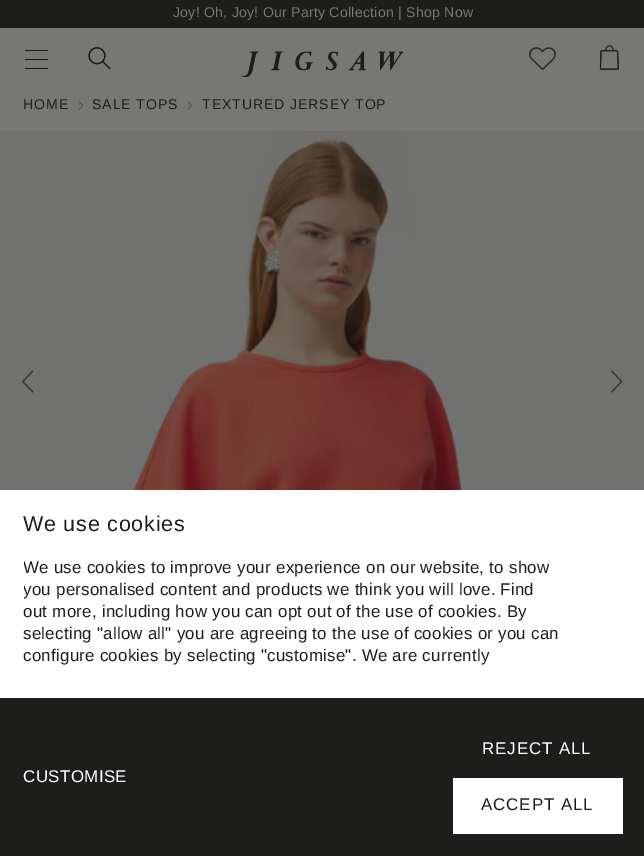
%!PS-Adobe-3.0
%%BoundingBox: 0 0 644 856
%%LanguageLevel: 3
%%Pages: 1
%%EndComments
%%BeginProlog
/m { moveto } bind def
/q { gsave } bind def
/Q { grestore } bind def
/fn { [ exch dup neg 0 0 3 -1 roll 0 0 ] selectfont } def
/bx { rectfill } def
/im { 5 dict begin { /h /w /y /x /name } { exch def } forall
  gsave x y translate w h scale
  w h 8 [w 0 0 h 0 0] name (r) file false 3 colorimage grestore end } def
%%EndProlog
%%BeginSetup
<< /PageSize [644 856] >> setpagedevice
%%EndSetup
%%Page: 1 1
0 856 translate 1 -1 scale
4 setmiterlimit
0.467 0.467 0.463 setrgbcolor
0 0 644 856 bx
0.114 0.114 0.106 setrgbcolor
0 0 644 28 bx
/LiberationSans-Regular 14.1 fn
0.467 0.467 0.463 setrgbcolor
173 17 m 0.25 0 (Joy! Oh, Joy! Our Party Collection | Shop Now) ashow
0.114 0.114 0.106 setrgbcolor
25 50 23 1 bx
25 59 23 1 bx
25 68 23 1 bx
(image0.raw) 88 47 23 23 im
(image1.raw) 241 51 163 26 im
(image2.raw) 529 47 27 24 im
(image3.raw) 599 45 20 25 im
23 109 m 0.9 0 (HOME) ashow
(image4.raw) 79 101 4 9 im
92 109 m 0.9 0 (SALE TOPS) ashow
(image5.raw) 187 101 5 9 im
202 109 m 0.9 0 (TEXTURED JERSEY TOP) ashow
(image6.raw) 0 131 644 359 im
(image7.raw) 22 370 12 23 im
(image8.raw) 611 370 12 23 im
1 setgray
0 490 644 208 bx
/LiberationSans-Regular 21.5 fn
0.114 0.114 0.106 setrgbcolor
23 531 m 0.75 0 (We use cookies) ashow
q
24 558 537 117 rectclip
/LiberationSans-Regular 16.9 fn
23 573 m 0.25 0 (We use cookies to improve your experience on our website, to show) ashow
23 595 m 0.25 0 (you personalised content and products we think you will love.) ashow
Q
/LiberationSans-Regular 16.9 fn
500 595 m 0.25 0 (Find) ashow
23 617 m 0.25 0 (out more, including how you can opt out of the use of cookies. By) ashow
23 639 m 0.25 0 (selecting "allow all" you are agreeing to the use of cookies or you can) ashow
23 661 m 0.25 0 (configure cookies by selecting "customise". We are currently) ashow
0 698 644 158 bx
1 setgray
23 782 m 0.4 0 (CUSTOMISE) ashow
482 754 m 0.9 0 (REJECT ALL) ashow
453 778 170 56 bx
0.114 0.114 0.106 setrgbcolor
481 810 m 0.9 0 (ACCEPT ALL) ashow
showpage
%%EOF
